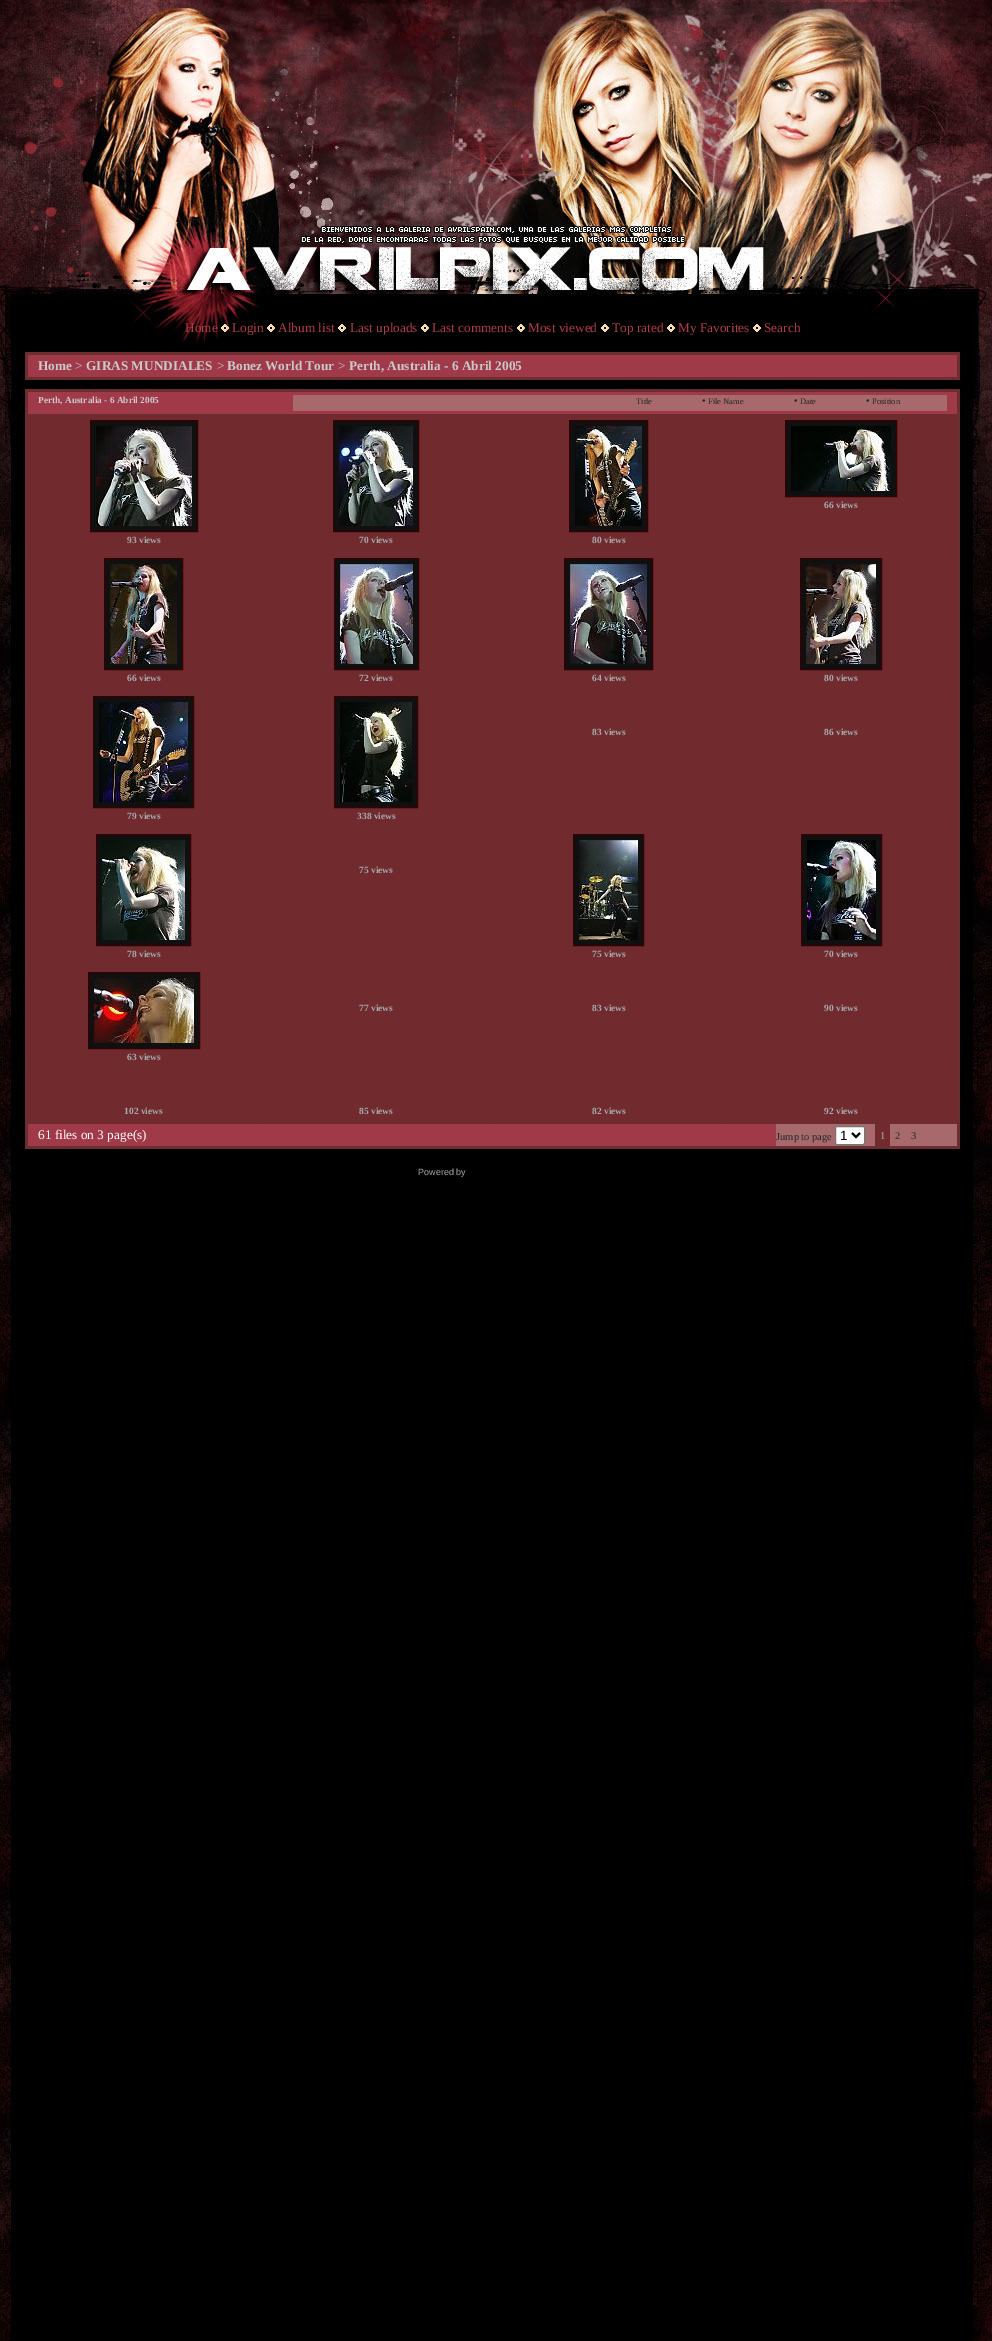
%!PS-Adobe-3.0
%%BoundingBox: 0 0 992 2341
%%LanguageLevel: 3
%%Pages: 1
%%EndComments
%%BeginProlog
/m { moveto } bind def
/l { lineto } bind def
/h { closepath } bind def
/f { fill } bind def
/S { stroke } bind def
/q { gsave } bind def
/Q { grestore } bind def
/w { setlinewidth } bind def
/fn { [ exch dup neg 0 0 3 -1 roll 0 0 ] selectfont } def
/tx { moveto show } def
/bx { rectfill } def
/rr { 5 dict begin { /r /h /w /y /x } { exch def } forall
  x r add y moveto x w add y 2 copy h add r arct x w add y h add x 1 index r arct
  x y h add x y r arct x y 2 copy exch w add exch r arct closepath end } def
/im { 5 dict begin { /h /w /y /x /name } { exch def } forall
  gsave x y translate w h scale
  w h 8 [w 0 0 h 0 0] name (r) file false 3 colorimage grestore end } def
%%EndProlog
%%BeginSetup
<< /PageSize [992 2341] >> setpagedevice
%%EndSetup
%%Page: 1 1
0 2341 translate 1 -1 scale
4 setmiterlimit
1 setgray
0 0 992 2341 bx
(image0.raw) 0 0 992 2341 im
/LiberationSerif-Regular 13.3 fn
0.71 0.227 0.282 setrgbcolor
(Home) 185 332 tx
(image1.raw) 221 324 8 8 im
(Login) 232 332 tx
(image2.raw) 267 324 8 8 im
(Album list) 278 332 tx
(image2.raw) 338 324 8 8 im
(Last uploads) 350 332 tx
(image2.raw) 421 324 8 8 im
(Last comments) 432 332 tx
(image2.raw) 517 324 8 8 im
(Most viewed) 528 332 tx
(image2.raw) 601 324 8 8 im
(Top rated) 612 332 tx
(image2.raw) 667 324 8 8 im
(My Favorites) 678 332 tx
(image2.raw) 753 324 8 8 im
(Search) 764 332 tx
0.424 0.18 0.192 setrgbcolor
25 352 935 28 bx
0.627 0.227 0.282 setrgbcolor
28 355 929 22 bx
/LiberationSerif-Bold 13.3 fn
0.788 setgray
(Home) 38 370 tx
/LiberationSerif-Regular 13.3 fn
(>) 75 370 tx
/LiberationSerif-Bold 13.3 fn
(GIRAS MUNDIALES) 86 370 tx
/LiberationSerif-Regular 13.3 fn
(>) 217 370 tx
/LiberationSerif-Bold 13.3 fn
(Bonez World Tour) 227 370 tx
/LiberationSerif-Regular 13.3 fn
(>) 338 370 tx
/LiberationSerif-Bold 13.3 fn
(Perth, Australia - 6 Abril 2005) 349 370 tx
0.424 0.18 0.192 setrgbcolor
25 389 935 760 bx
0.627 0.227 0.282 setrgbcolor
28 392 929 22 bx
/LiberationSerif-Bold 9.3 fn
0.788 setgray
(Perth, Australia - 6 Abril 2005) 38 403 tx
0.655 0.412 0.42 setrgbcolor
293 395 654 16 bx
/LiberationSerif-Regular 8.5 fn
0.157 setgray
(Title) 636 404 tx
/LiberationSerif-Regular 10.5 fn
(•) 702 404 tx
/LiberationSerif-Regular 8.5 fn
(File Name) 708 404 tx
/LiberationSerif-Regular 10.5 fn
(•) 794 404 tx
/LiberationSerif-Regular 8.5 fn
(Date) 800 404 tx
/LiberationSerif-Regular 10.5 fn
(•) 866 404 tx
/LiberationSerif-Regular 8.5 fn
(Position) 872 404 tx
0.443 0.169 0.18 setrgbcolor
726 415 231 137 bx
0.063 setgray
785.5 420.5 m 896.5 420.5 l 896.5 496.5 l 785.5 496.5 l h q f Q
0.208 0.004 0.012 setrgbcolor
S
(image3.raw) 791 426 100 65 im
/LiberationSerif-Bold 9.5 fn
0.647 0.659 0.667 setrgbcolor
(66 views) 824 508 tx
0.443 0.169 0.18 setrgbcolor
28 415 232 137 bx
0.063 setgray
90.5 420.5 m 197.5 420.5 l 197.5 531.5 l 90.5 531.5 l h q f Q
0.208 0.004 0.012 setrgbcolor
S
(image4.raw) 96 426 96 100 im
0.647 0.659 0.667 setrgbcolor
(93 views) 127 543 tx
0.443 0.169 0.18 setrgbcolor
261 415 231 137 bx
0.063 setgray
333.5 420.5 m 418.5 420.5 l 418.5 531.5 l 333.5 531.5 l h q f Q
0.208 0.004 0.012 setrgbcolor
S
(image5.raw) 339 426 74 100 im
0.647 0.659 0.667 setrgbcolor
(70 views) 359 543 tx
0.443 0.169 0.18 setrgbcolor
493 415 232 137 bx
0.063 setgray
569.5 420.5 m 647.5 420.5 l 647.5 531.5 l 569.5 531.5 l h q f Q
0.208 0.004 0.012 setrgbcolor
S
(image6.raw) 575 426 67 100 im
0.647 0.659 0.667 setrgbcolor
(80 views) 592 543 tx
0.443 0.169 0.18 setrgbcolor
28 553 232 137 bx
0.063 setgray
104.5 558.5 m 182.5 558.5 l 182.5 669.5 l 104.5 669.5 l h q f Q
0.208 0.004 0.012 setrgbcolor
S
(image7.raw) 110 564 67 100 im
0.647 0.659 0.667 setrgbcolor
(66 views) 127 681 tx
0.443 0.169 0.18 setrgbcolor
261 553 231 137 bx
0.063 setgray
334.5 558.5 m 418.5 558.5 l 418.5 669.5 l 334.5 669.5 l h q f Q
0.208 0.004 0.012 setrgbcolor
S
(image8.raw) 340 564 73 100 im
0.647 0.659 0.667 setrgbcolor
(72 views) 359 681 tx
0.443 0.169 0.18 setrgbcolor
493 553 232 137 bx
0.063 setgray
564.5 558.5 m 652.5 558.5 l 652.5 669.5 l 564.5 669.5 l h q f Q
0.208 0.004 0.012 setrgbcolor
S
(image9.raw) 570 564 77 100 im
0.647 0.659 0.667 setrgbcolor
(64 views) 592 681 tx
0.443 0.169 0.18 setrgbcolor
726 553 231 137 bx
0.063 setgray
800.5 558.5 m 881.5 558.5 l 881.5 669.5 l 800.5 669.5 l h q f Q
0.208 0.004 0.012 setrgbcolor
S
(image10.raw) 806 564 70 100 im
0.647 0.659 0.667 setrgbcolor
(80 views) 824 681 tx
0.443 0.169 0.18 setrgbcolor
493 691 232 137 bx
0.647 0.659 0.667 setrgbcolor
(83 views) 592 735 tx
0.443 0.169 0.18 setrgbcolor
726 691 231 137 bx
0.647 0.659 0.667 setrgbcolor
(86 views) 824 735 tx
0.443 0.169 0.18 setrgbcolor
28 691 232 137 bx
0.063 setgray
93.5 696.5 m 193.5 696.5 l 193.5 807.5 l 93.5 807.5 l h q f Q
0.208 0.004 0.012 setrgbcolor
S
(image11.raw) 99 702 89 100 im
0.647 0.659 0.667 setrgbcolor
(79 views) 127 819 tx
0.443 0.169 0.18 setrgbcolor
261 691 231 137 bx
0.063 setgray
334.5 696.5 m 417.5 696.5 l 417.5 807.5 l 334.5 807.5 l h q f Q
0.208 0.004 0.012 setrgbcolor
S
(image12.raw) 340 702 72 100 im
0.647 0.659 0.667 setrgbcolor
(338 views) 357 819 tx
0.443 0.169 0.18 setrgbcolor
261 829 231 137 bx
0.647 0.659 0.667 setrgbcolor
(75 views) 359 873 tx
0.443 0.169 0.18 setrgbcolor
28 829 232 137 bx
0.063 setgray
96.5 834.5 m 190.5 834.5 l 190.5 945.5 l 96.5 945.5 l h q f Q
0.208 0.004 0.012 setrgbcolor
S
(image13.raw) 102 840 83 100 im
0.647 0.659 0.667 setrgbcolor
(78 views) 127 957 tx
0.443 0.169 0.18 setrgbcolor
493 829 232 137 bx
0.063 setgray
573.5 834.5 m 643.5 834.5 l 643.5 945.5 l 573.5 945.5 l h q f Q
0.208 0.004 0.012 setrgbcolor
S
(image14.raw) 579 840 59 100 im
0.647 0.659 0.667 setrgbcolor
(75 views) 592 957 tx
0.443 0.169 0.18 setrgbcolor
726 829 231 137 bx
0.063 setgray
801.5 834.5 m 881.5 834.5 l 881.5 945.5 l 801.5 945.5 l h q f Q
0.208 0.004 0.012 setrgbcolor
S
(image15.raw) 807 840 69 100 im
0.647 0.659 0.667 setrgbcolor
(70 views) 824 957 tx
0.443 0.169 0.18 setrgbcolor
261 967 231 102 bx
0.647 0.659 0.667 setrgbcolor
(77 views) 359 1011 tx
0.443 0.169 0.18 setrgbcolor
493 967 232 102 bx
0.647 0.659 0.667 setrgbcolor
(83 views) 592 1011 tx
0.443 0.169 0.18 setrgbcolor
726 967 231 102 bx
0.647 0.659 0.667 setrgbcolor
(90 views) 824 1011 tx
0.443 0.169 0.18 setrgbcolor
28 967 232 102 bx
0.063 setgray
88.5 972.5 m 199.5 972.5 l 199.5 1048.5 l 88.5 1048.5 l h q f Q
0.208 0.004 0.012 setrgbcolor
S
(image16.raw) 94 978 100 65 im
0.647 0.659 0.667 setrgbcolor
(63 views) 127 1060 tx
0.443 0.169 0.18 setrgbcolor
28 1070 232 53 bx
0.647 0.659 0.667 setrgbcolor
(102 views) 124 1114 tx
0.443 0.169 0.18 setrgbcolor
261 1070 231 53 bx
0.647 0.659 0.667 setrgbcolor
(85 views) 359 1114 tx
0.443 0.169 0.18 setrgbcolor
493 1070 232 53 bx
0.647 0.659 0.667 setrgbcolor
(82 views) 592 1114 tx
0.443 0.169 0.18 setrgbcolor
726 1070 231 53 bx
0.647 0.659 0.667 setrgbcolor
(92 views) 824 1114 tx
0.627 0.227 0.282 setrgbcolor
28 1124 748 22 bx
/LiberationSerif-Regular 13.3 fn
1 setgray
(61 files on 3 page\(s\)) 38 1139 tx
0.655 0.412 0.42 setrgbcolor
776 1124 99 22 bx
/LiberationSerif-Regular 10.5 fn
0.157 setgray
(Jump to page) 776 1140 tx
1 setgray
835.5 1126.5 29 18 1.5 rr q f Q
0.463 setgray
S
0 setgray
2 w
852 1133 m 856 1137 l 860 1133 l S
/LiberationSans-Regular 13.3 fn
(1) 840 1140 tx
0.443 0.165 0.176 setrgbcolor
875 1124 15 22 bx
/LiberationSerif-Regular 10.5 fn
0.647 0.659 0.667 setrgbcolor
(1) 880 1139 tx
0.655 0.412 0.42 setrgbcolor
890 1124 67 22 bx
0.157 setgray
(2) 895 1139 tx
(3) 911 1139 tx
/LiberationSans-Regular 9 fn
0.647 0.659 0.667 setrgbcolor
(Powered by) 418 1175 tx
showpage
%%EOF
